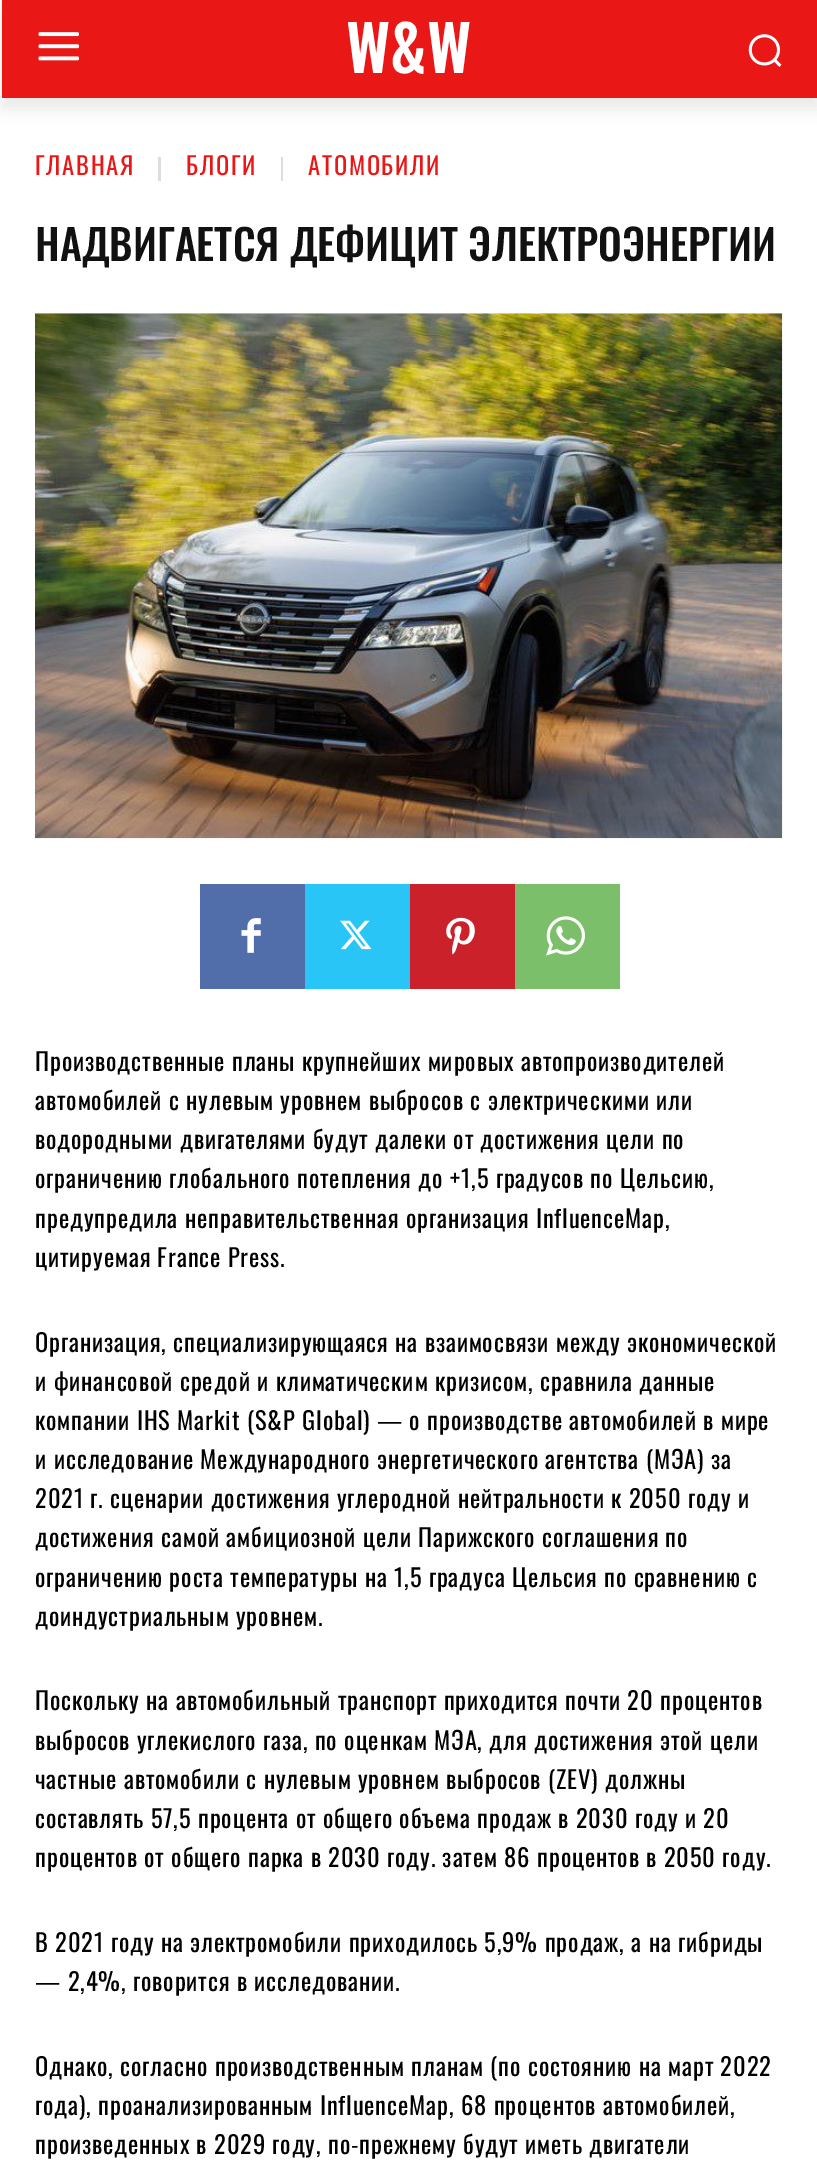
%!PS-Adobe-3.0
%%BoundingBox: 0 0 817 2162
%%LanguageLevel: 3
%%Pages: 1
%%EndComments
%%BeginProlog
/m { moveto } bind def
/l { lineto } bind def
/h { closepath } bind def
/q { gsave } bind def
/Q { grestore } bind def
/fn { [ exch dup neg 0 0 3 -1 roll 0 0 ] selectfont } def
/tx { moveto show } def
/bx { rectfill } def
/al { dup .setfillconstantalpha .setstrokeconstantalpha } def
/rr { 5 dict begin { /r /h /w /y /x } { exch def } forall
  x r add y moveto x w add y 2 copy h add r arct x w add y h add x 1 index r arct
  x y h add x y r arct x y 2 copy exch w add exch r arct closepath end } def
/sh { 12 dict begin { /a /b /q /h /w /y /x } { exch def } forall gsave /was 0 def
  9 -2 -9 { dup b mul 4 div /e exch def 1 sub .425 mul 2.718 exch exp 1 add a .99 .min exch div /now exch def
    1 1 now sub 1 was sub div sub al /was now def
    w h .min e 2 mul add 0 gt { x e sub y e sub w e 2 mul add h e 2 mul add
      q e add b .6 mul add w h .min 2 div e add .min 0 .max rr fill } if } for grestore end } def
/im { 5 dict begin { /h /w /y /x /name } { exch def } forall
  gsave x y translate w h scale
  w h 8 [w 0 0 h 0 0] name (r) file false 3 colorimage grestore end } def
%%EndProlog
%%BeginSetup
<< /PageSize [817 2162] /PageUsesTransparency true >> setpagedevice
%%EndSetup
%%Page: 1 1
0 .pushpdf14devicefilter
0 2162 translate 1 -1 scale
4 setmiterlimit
1 setgray
0 0 817 2162 bx
0.918 0.09 0.09 setrgbcolor
2 0 815 98 bx
(image0.raw) 38 32 41 29 im
(image1.raw) 748 34 34 33 im
q
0 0 m 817 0 l 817 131 l 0 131 l h 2 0 m 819 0 l 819 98 l 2 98 l h eoclip newpath
0 setgray
2 11 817 98 0 7 0.08 sh
Q
/Oswald-SemiBold 63 fn
1 setgray
(W&W) 346 73 tx
/Oswald-Regular 24.5 fn
0.918 0.09 0.09 setrgbcolor
35 175 m 1.75 0 (ГЛАВНАЯ) ashow
0.867 setgray
158 157 3 24 bx
0.918 0.09 0.09 setrgbcolor
186 175 m 1.75 0 (БЛОГИ) ashow
0.867 setgray
281 157 2 24 bx
0.918 0.09 0.09 setrgbcolor
308 175 m 1.75 0 (АТОМОБИЛИ) ashow
/Oswald-Medium 42 fn
0.067 setgray
(НАДВИГАЕТСЯ ДЕФИЦИТ ЭЛЕКТРОЭНЕРГИИ) 35 261 tx
(image2.raw) 35 313 748 526 im
0.318 0.431 0.671 setrgbcolor
200 884 105 105 bx
(image3.raw) 241 918 20 35 im
0.161 0.773 0.965 setrgbcolor
305 884 105 105 bx
(image4.raw) 340 920 32 30 im
0.792 0.129 0.165 setrgbcolor
410 884 105 105 bx
(image5.raw) 446 917 29 38 im
0.482 0.749 0.416 setrgbcolor
515 884 105 105 bx
(image6.raw) 546 916 39 40 im
/Oswald-Regular 24.5 fn
0 setgray
35 1071 m 0.88 0 (Производственные планы крупнейших мировых автопроизводителей) ashow
35 1110 m 0.88 0 (автомобилей с нулевым уровнем выбросов с электрическими или) ashow
35 1149 m 0.88 0 (водородными двигателями будут далеки от достижения цели по) ashow
35 1188 m 0.88 0 (ограничению глобального потепления до +1,5 градусов по Цельсию,) ashow
35 1228 m 0.88 0 (предупредила неправительственная организация InfluenceMap,) ashow
35 1267 m 0.88 0 (цитируемая France Press.) ashow
35 1352 m 0.88 0 (Организация, специализирующаяся на взаимосвязи между экономической) ashow
35 1391 m 0.88 0 (и финансовой средой и климатическим кризисом, сравнила данные) ashow
35 1430 m 0.88 0 (компании IHS Markit \(S&P Global\) — о производстве автомобилей в мире) ashow
35 1469 m 0.88 0 (и исследование Международного энергетического агентства \(МЭА\) за) ashow
35 1508 m 0.88 0 (2021 г. сценарии достижения углеродной нейтральности к 2050 году и) ashow
35 1547 m 0.88 0 (достижения самой амбициозной цели Парижского соглашения по) ashow
35 1587 m 0.88 0 (ограничению роста температуры на 1,5 градуса Цельсия по сравнению с) ashow
35 1626 m 0.88 0 (доиндустриальным уровнем.) ashow
35 1710 m 0.88 0 (Поскольку на автомобильный транспорт приходится почти 20 процентов) ashow
35 1750 m 0.88 0 (выбросов углекислого газа, по оценкам МЭА, для достижения этой цели) ashow
35 1789 m 0.88 0 (частные автомобили с нулевым уровнем выбросов \(ZEV\) должны) ashow
35 1828 m 0.88 0 (составлять 57,5 процента от общего объема продаж в 2030 году и 20) ashow
35 1867 m 0.88 0 (процентов от общего парка в 2030 году. затем 86 процентов в 2050 году.) ashow
35 1952 m 0.88 0 (В 2021 году на электромобили приходилось 5,9% продаж, а на гибриды) ashow
35 1991 m 0.88 0 (— 2,4%, говорится в исследовании.) ashow
35 2076 m 0.88 0 (Однако, согласно производственным планам \(по состоянию на март 2022) ashow
35 2115 m 0.88 0 (года\), проанализированным InfluenceMap, 68 процентов автомобилей,) ashow
35 2154 m 0.88 0 (произведенных в 2029 году, по-прежнему будут иметь двигатели) ashow
.poppdf14devicefilter showpage
%%EOF
